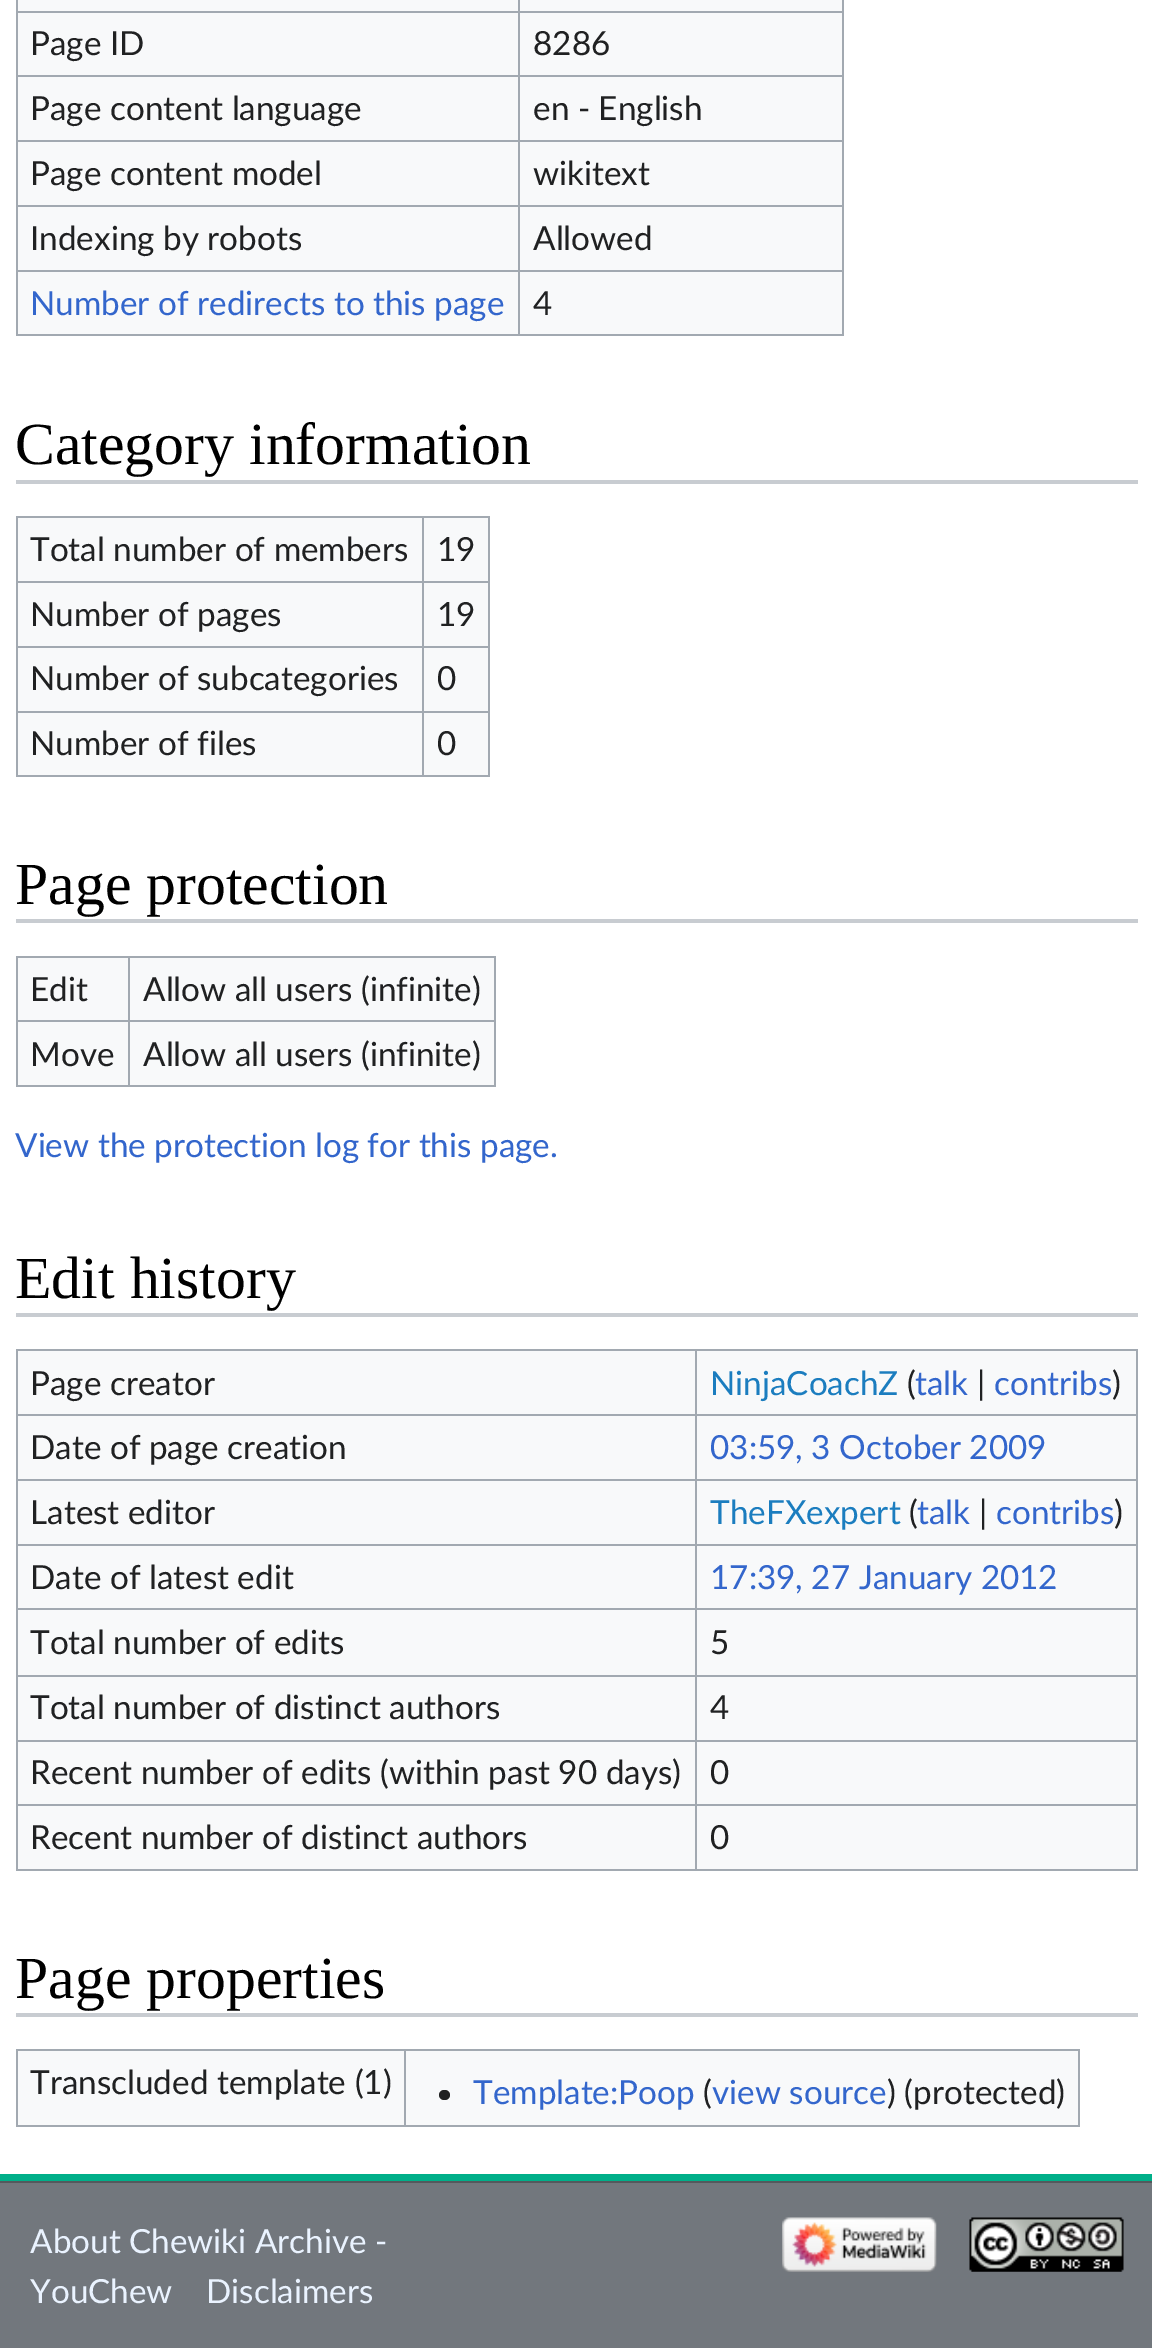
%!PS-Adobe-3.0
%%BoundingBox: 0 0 1152 2348
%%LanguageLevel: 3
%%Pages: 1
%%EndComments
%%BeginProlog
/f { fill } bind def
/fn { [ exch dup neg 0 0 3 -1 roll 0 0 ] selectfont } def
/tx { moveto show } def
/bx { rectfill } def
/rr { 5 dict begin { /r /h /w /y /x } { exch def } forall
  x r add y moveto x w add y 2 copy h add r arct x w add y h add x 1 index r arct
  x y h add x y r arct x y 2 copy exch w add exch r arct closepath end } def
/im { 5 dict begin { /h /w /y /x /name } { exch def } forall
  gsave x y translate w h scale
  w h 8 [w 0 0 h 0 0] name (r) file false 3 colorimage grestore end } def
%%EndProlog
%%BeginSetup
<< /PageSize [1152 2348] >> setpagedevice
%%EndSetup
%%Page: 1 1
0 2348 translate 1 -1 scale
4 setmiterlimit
0.447 0.467 0.49 setrgbcolor
0 0 1152 2348 bx
0 0.686 0.537 setrgbcolor
0 2174 1152 7 bx
1 setgray
0 0 1152 2174 bx
0.973 0.976 0.98 setrgbcolor
18 0 824 334 bx
0.635 0.663 0.694 setrgbcolor
842 0 2 336 bx
16 334 828 2 bx
16 0 2 336 bx
518 11 326 2 bx
518 75 326 2 bx
518 140 326 2 bx
518 205 326 2 bx
518 270 326 2 bx
518 270 2 66 bx
16 270 504 2 bx
518 205 2 66 bx
16 205 504 2 bx
518 140 2 67 bx
16 140 504 2 bx
518 75 2 67 bx
16 75 504 2 bx
518 11 2 66 bx
16 11 504 2 bx
518 0 2 12 bx
/Lato-Regular 33.25 fn
0.125 0.129 0.133 setrgbcolor
(Page ID) 30 55 tx
(8286) 533 55 tx
(Page content language) 30 120 tx
(en - English) 533 120 tx
(Page content model) 30 185 tx
(wikitext) 533 185 tx
(Indexing by robots) 30 250 tx
(Allowed) 533 250 tx
0.2 0.4 0.8 setrgbcolor
(Number of redirects to this page) 30 315 tx
0.125 0.129 0.133 setrgbcolor
(4) 533 315 tx
0.784 0.8 0.82 setrgbcolor
16 480 1122 4 bx
/LiberationSerif-Regular 59.75 fn
0 setgray
(Category information) 15 464 tx
0.973 0.976 0.98 setrgbcolor
18 518 470 257 bx
0.635 0.663 0.694 setrgbcolor
16 516 474 2 bx
488 516 2 261 bx
16 775 474 2 bx
16 516 2 261 bx
/Lato-Regular 33.25 fn
0.125 0.129 0.133 setrgbcolor
(Total number of members) 30 561 tx
0.635 0.663 0.694 setrgbcolor
422 581 68 2 bx
422 646 68 2 bx
422 711 68 2 bx
422 711 2 66 bx
16 711 408 2 bx
422 646 2 66 bx
16 646 408 2 bx
422 581 2 67 bx
16 581 408 2 bx
422 516 2 67 bx
0.125 0.129 0.133 setrgbcolor
(19) 437 561 tx
(Number of pages) 30 626 tx
(19) 437 626 tx
(Number of subcategories) 30 690 tx
(0) 437 690 tx
(Number of files) 30 755 tx
(0) 437 755 tx
0.784 0.8 0.82 setrgbcolor
16 919 1122 4 bx
/LiberationSerif-Regular 59.75 fn
0 setgray
(Page protection) 15 904 tx
0.973 0.976 0.98 setrgbcolor
18 958 476 127 bx
0.635 0.663 0.694 setrgbcolor
16 956 479 2 bx
494 956 2 131 bx
16 1085 479 2 bx
16 956 2 131 bx
/Lato-Regular 33.25 fn
0.125 0.129 0.133 setrgbcolor
(Edit) 30 1001 tx
0.635 0.663 0.694 setrgbcolor
128 1020 367 2 bx
128 1020 2 67 bx
16 1020 114 2 bx
128 956 2 66 bx
0.125 0.129 0.133 setrgbcolor
(Allow all users \(infinite\)) 143 1001 tx
(Move) 30 1066 tx
(Allow all users \(infinite\)) 143 1066 tx
0.2 0.4 0.8 setrgbcolor
(View the protection log for this page.) 15 1157 tx
0.784 0.8 0.82 setrgbcolor
16 1313 1122 4 bx
/LiberationSerif-Regular 59.75 fn
0 setgray
(Edit history) 15 1298 tx
0.973 0.976 0.98 setrgbcolor
18 1351 1118 518 bx
0.635 0.663 0.694 setrgbcolor
16 1349 1122 2 bx
1136 1349 2 522 bx
16 1869 1122 2 bx
16 1349 2 522 bx
/Lato-Regular 33.25 fn
0.125 0.129 0.133 setrgbcolor
(Page creator) 30 1395 tx
0.635 0.663 0.694 setrgbcolor
695 1414 443 2 bx
695 1479 443 2 bx
695 1544 443 2 bx
695 1608 443 2 bx
695 1675 443 2 bx
695 1740 443 2 bx
695 1804 443 2 bx
695 1804 2 67 bx
16 1804 681 2 bx
695 1740 2 66 bx
16 1740 681 2 bx
695 1675 2 66 bx
16 1675 681 2 bx
695 1608 2 69 bx
16 1608 681 2 bx
695 1544 2 66 bx
16 1544 681 2 bx
695 1479 2 66 bx
16 1479 681 2 bx
695 1414 2 67 bx
16 1414 681 2 bx
695 1349 2 67 bx
0.106 0.49 0.749 setrgbcolor
(NinjaCoachZ) 710 1395 tx
0.125 0.129 0.133 setrgbcolor
(\() 907 1395 tx
0.2 0.4 0.8 setrgbcolor
(talk) 915 1395 tx
0.125 0.129 0.133 setrgbcolor
(|) 977 1395 tx
0.2 0.4 0.8 setrgbcolor
(contribs) 994 1395 tx
0.125 0.129 0.133 setrgbcolor
(\)) 1112 1395 tx
(Date of page creation) 30 1459 tx
0.2 0.4 0.8 setrgbcolor
(03:59, 3 October 2009) 710 1459 tx
0.125 0.129 0.133 setrgbcolor
(Latest editor) 30 1524 tx
0.106 0.49 0.749 setrgbcolor
(TheFXexpert) 710 1524 tx
0.125 0.129 0.133 setrgbcolor
(\() 909 1524 tx
0.2 0.4 0.8 setrgbcolor
(talk) 917 1524 tx
0.125 0.129 0.133 setrgbcolor
(|) 979 1524 tx
0.2 0.4 0.8 setrgbcolor
(contribs) 996 1524 tx
0.125 0.129 0.133 setrgbcolor
(\)) 1114 1524 tx
(Date of latest edit) 30 1589 tx
0.2 0.4 0.8 setrgbcolor
(17:39, 27 January 2012) 710 1589 tx
0.125 0.129 0.133 setrgbcolor
(Total number of edits) 30 1654 tx
(5) 710 1654 tx
(Total number of distinct authors) 30 1719 tx
(4) 710 1719 tx
(Recent number of edits \(within past 90 days\)) 30 1784 tx
(0) 710 1784 tx
(Recent number of distinct authors) 30 1849 tx
(0) 710 1849 tx
0.784 0.8 0.82 setrgbcolor
16 2013 1122 4 bx
/LiberationSerif-Regular 59.75 fn
0 setgray
(Page properties) 15 1998 tx
0.973 0.976 0.98 setrgbcolor
18 2051 1060 74 bx
0.635 0.663 0.694 setrgbcolor
16 2049 1064 2 bx
1078 2049 2 77 bx
16 2125 1064 2 bx
16 2049 2 77 bx
/Lato-Regular 33.25 fn
0.125 0.129 0.133 setrgbcolor
(Transcluded template \(1\)) 30 2094 tx
0.635 0.663 0.694 setrgbcolor
404 2049 2 77 bx
0.125 0.129 0.133 setrgbcolor
439 2090 11 10 5 rr f
0.2 0.4 0.8 setrgbcolor
(Template:Poop) 473 2104 tx
0.125 0.129 0.133 setrgbcolor
(\() 703 2104 tx
0.2 0.4 0.8 setrgbcolor
(view source) 712 2104 tx
0.125 0.129 0.133 setrgbcolor
(\) \(protected\)) 887 2104 tx
0.329 0.349 0.365 setrgbcolor
0 2181 1152 2 bx
0.918 0.953 1 setrgbcolor
(About Chewiki Archive -) 30 2253 tx
(YouChew) 30 2303 tx
(Disclaimers) 206 2303 tx
(image0.raw) 782 2217 155 55 im
(image1.raw) 969 2217 155 55 im
showpage
%%EOF
